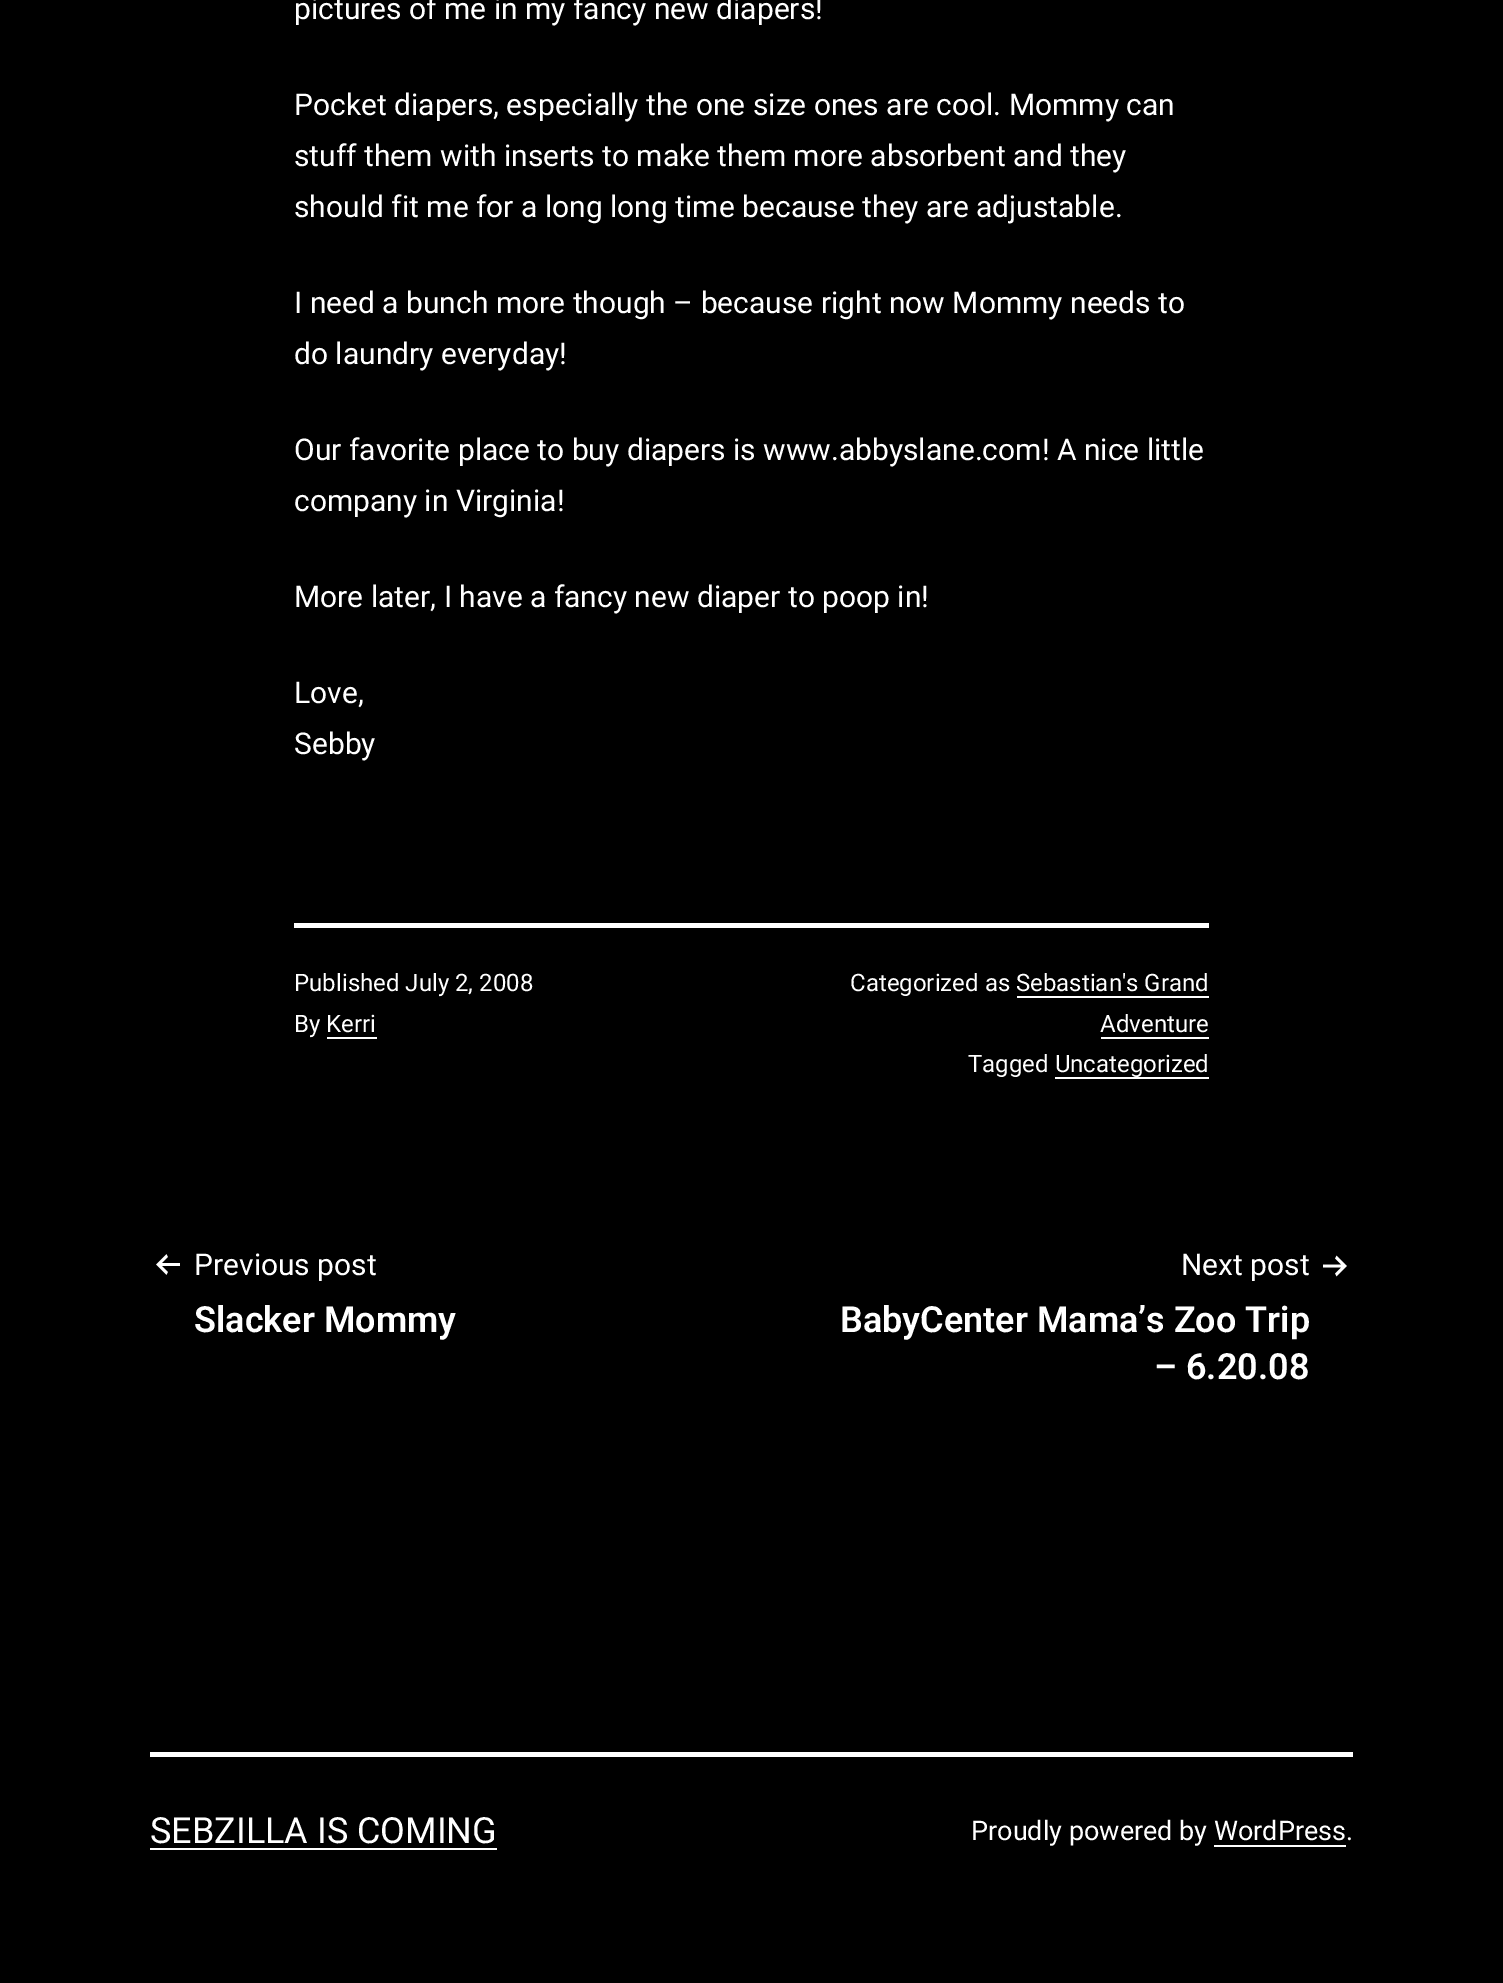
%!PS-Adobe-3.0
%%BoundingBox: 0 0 1503 1983
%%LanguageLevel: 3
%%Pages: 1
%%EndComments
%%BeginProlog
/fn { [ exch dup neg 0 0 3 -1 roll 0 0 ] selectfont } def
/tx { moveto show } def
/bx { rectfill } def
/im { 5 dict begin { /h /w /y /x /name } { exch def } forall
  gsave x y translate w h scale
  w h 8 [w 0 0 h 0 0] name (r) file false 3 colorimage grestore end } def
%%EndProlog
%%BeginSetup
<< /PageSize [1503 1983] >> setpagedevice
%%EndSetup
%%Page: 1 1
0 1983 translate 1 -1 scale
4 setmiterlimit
0 setgray
0 0 1503 1983 bx
/Roboto-Regular 30 fn
1 setgray
(pictures of me in my fancy new diapers!) 294 19 tx
(Pocket diapers, especially the one size ones are cool. Mommy can) 294 115 tx
(stuff them with inserts to make them more absorbent and they) 294 166 tx
(should fit me for a long long time because they are adjustable.) 294 217 tx
(I need a bunch more though – because right now Mommy needs to) 294 313 tx
(do laundry everyday!) 294 364 tx
(Our favorite place to buy diapers is www.abbyslane.com! A nice little) 294 460 tx
(company in Virginia!) 294 511 tx
(More later, I have a fancy new diaper to poop in!) 294 607 tx
(Love,) 294 703 tx
(Sebby) 294 754 tx
294 923 915 5 bx
/Roboto-Regular 24 fn
(Published July 2, 2008) 294 991 tx
(By Kerri) 294 1032 tx
327 1037 50 2 bx
(Categorized as Sebastian's Grand) 850 991 tx
(Adventure) 1100 1032 tx
1017 996 192 2 bx
1101 1037 108 2 bx
(Tagged Uncategorized) 968 1072 tx
1055 1077 154 2 bx
(image0.raw) 156 1254 24 21 im
/Roboto-Regular 30 fn
(Previous post) 194 1275 tx
/Roboto-SemiBold 36 fn
(Slacker Mommy) 194 1332 tx
/Roboto-Regular 30 fn
(Next post) 1181 1275 tx
(image1.raw) 1323 1255 24 22 im
/Roboto-SemiBold 36 fn
(BabyCenter Mama’s Zoo Trip) 840 1332 tx
(– 6.20.08) 1154 1379 tx
150 1752 1203 5 bx
/Roboto-Regular 36 fn
(SEBZILLA IS COMING) 150 1843 tx
150 1848 347 2 bx
/Roboto-Regular 27 fn
(Proudly powered by WordPress.) 971 1840 tx
1214 1845 132 2 bx
showpage
%%EOF
